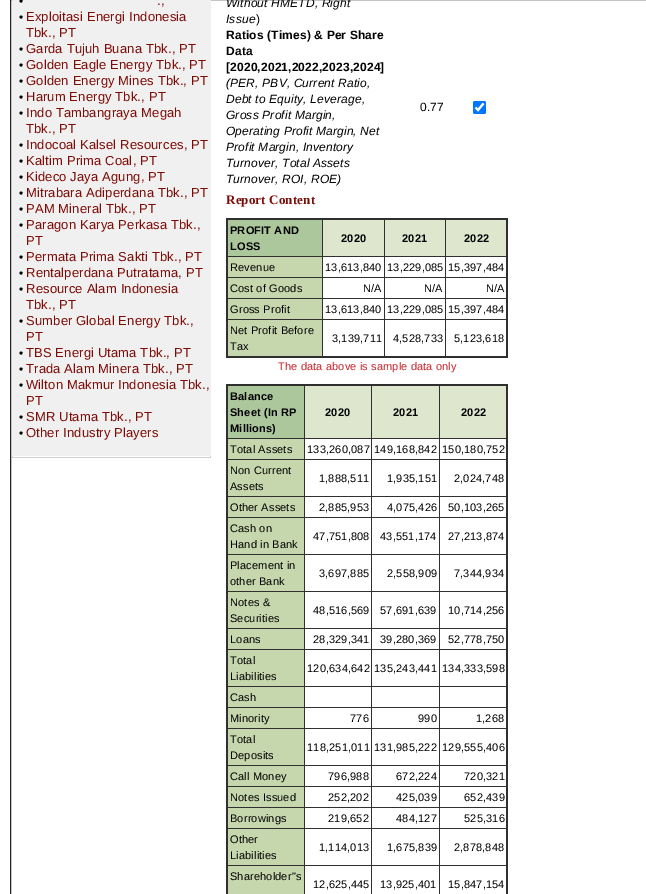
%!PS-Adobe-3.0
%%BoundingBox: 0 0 646 894
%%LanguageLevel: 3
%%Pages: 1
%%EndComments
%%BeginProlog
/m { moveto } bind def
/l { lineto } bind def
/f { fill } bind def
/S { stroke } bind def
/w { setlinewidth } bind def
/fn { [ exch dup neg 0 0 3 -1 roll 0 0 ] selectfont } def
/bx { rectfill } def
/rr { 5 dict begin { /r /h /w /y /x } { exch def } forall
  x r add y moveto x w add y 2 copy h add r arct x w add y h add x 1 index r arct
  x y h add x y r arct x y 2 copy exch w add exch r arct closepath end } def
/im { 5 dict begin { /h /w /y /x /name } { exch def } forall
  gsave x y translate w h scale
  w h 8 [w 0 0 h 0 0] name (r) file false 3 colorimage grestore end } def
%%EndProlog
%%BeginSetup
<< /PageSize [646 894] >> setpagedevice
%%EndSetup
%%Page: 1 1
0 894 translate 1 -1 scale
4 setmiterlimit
1 setgray
0 0 646 894 bx
0.133 setgray
10.5 -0.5 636 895 rectstroke
0.941 setgray
12 0 199 456 bx
(image0.raw) 12 456 199 2 im
/LiberationSans-Regular 12 fn
0 setgray
19 5 m 0.15 0 (•) ashow
/LiberationSans-Regular 13 fn
0.49 0.043 0.024 setrgbcolor
157 5 m 0.15 0 (.,) ashow
/LiberationSans-Regular 12 fn
0 setgray
19 21 m 0.15 0 (•) ashow
/LiberationSans-Regular 13 fn
0.49 0.043 0.024 setrgbcolor
26 21 m 0.15 0 (Exploitasi Energi Indonesia) ashow
26 37 m 0.15 0 (Tbk., PT) ashow
/LiberationSans-Regular 12 fn
0 setgray
19 53 m 0.15 0 (•) ashow
/LiberationSans-Regular 13 fn
0.49 0.043 0.024 setrgbcolor
26 53 m 0.15 0 (Garda Tujuh Buana Tbk., PT) ashow
/LiberationSans-Regular 12 fn
0 setgray
19 69 m 0.15 0 (•) ashow
/LiberationSans-Regular 13 fn
0.49 0.043 0.024 setrgbcolor
26 69 m 0.15 0 (Golden Eagle Energy Tbk., PT) ashow
/LiberationSans-Regular 12 fn
0 setgray
19 85 m 0.15 0 (•) ashow
/LiberationSans-Regular 13 fn
0.49 0.043 0.024 setrgbcolor
26 85 m 0.15 0 (Golden Energy Mines Tbk., PT) ashow
/LiberationSans-Regular 12 fn
0 setgray
19 101 m 0.15 0 (•) ashow
/LiberationSans-Regular 13 fn
0.49 0.043 0.024 setrgbcolor
26 101 m 0.15 0 (Harum Energy Tbk., PT) ashow
/LiberationSans-Regular 12 fn
0 setgray
19 117 m 0.15 0 (•) ashow
/LiberationSans-Regular 13 fn
0.49 0.043 0.024 setrgbcolor
26 117 m 0.15 0 (Indo Tambangraya Megah) ashow
26 133 m 0.15 0 (Tbk., PT) ashow
/LiberationSans-Regular 12 fn
0 setgray
19 149 m 0.15 0 (•) ashow
/LiberationSans-Regular 13 fn
0.49 0.043 0.024 setrgbcolor
26 149 m 0.15 0 (Indocoal Kalsel Resources, PT) ashow
/LiberationSans-Regular 12 fn
0 setgray
19 165 m 0.15 0 (•) ashow
/LiberationSans-Regular 13 fn
0.49 0.043 0.024 setrgbcolor
26 165 m 0.15 0 (Kaltim Prima Coal, PT) ashow
/LiberationSans-Regular 12 fn
0 setgray
19 181 m 0.15 0 (•) ashow
/LiberationSans-Regular 13 fn
0.49 0.043 0.024 setrgbcolor
26 181 m 0.15 0 (Kideco Jaya Agung, PT) ashow
/LiberationSans-Regular 12 fn
0 setgray
19 197 m 0.15 0 (•) ashow
/LiberationSans-Regular 13 fn
0.49 0.043 0.024 setrgbcolor
26 197 m 0.15 0 (Mitrabara Adiperdana Tbk., PT) ashow
/LiberationSans-Regular 12 fn
0 setgray
19 213 m 0.15 0 (•) ashow
/LiberationSans-Regular 13 fn
0.49 0.043 0.024 setrgbcolor
26 213 m 0.15 0 (PAM Mineral Tbk., PT) ashow
/LiberationSans-Regular 12 fn
0 setgray
19 229 m 0.15 0 (•) ashow
/LiberationSans-Regular 13 fn
0.49 0.043 0.024 setrgbcolor
26 229 m 0.15 0 (Paragon Karya Perkasa Tbk.,) ashow
26 245 m 0.15 0 (PT) ashow
/LiberationSans-Regular 12 fn
0 setgray
19 261 m 0.15 0 (•) ashow
/LiberationSans-Regular 13 fn
0.49 0.043 0.024 setrgbcolor
26 261 m 0.15 0 (Permata Prima Sakti Tbk., PT) ashow
/LiberationSans-Regular 12 fn
0 setgray
19 277 m 0.15 0 (•) ashow
/LiberationSans-Regular 13 fn
0.49 0.043 0.024 setrgbcolor
26 277 m 0.15 0 (Rentalperdana Putratama, PT) ashow
/LiberationSans-Regular 12 fn
0 setgray
19 293 m 0.15 0 (•) ashow
/LiberationSans-Regular 13 fn
0.49 0.043 0.024 setrgbcolor
26 293 m 0.15 0 (Resource Alam Indonesia) ashow
26 309 m 0.15 0 (Tbk., PT) ashow
/LiberationSans-Regular 12 fn
0 setgray
19 325 m 0.15 0 (•) ashow
/LiberationSans-Regular 13 fn
0.49 0.043 0.024 setrgbcolor
26 325 m 0.15 0 (Sumber Global Energy Tbk.,) ashow
26 341 m 0.15 0 (PT) ashow
/LiberationSans-Regular 12 fn
0 setgray
19 357 m 0.15 0 (•) ashow
/LiberationSans-Regular 13 fn
0.49 0.043 0.024 setrgbcolor
26 357 m 0.15 0 (TBS Energi Utama Tbk., PT) ashow
/LiberationSans-Regular 12 fn
0 setgray
19 373 m 0.15 0 (•) ashow
/LiberationSans-Regular 13 fn
0.49 0.043 0.024 setrgbcolor
26 373 m 0.15 0 (Trada Alam Minera Tbk., PT) ashow
/LiberationSans-Regular 12 fn
0 setgray
19 389 m 0.15 0 (•) ashow
/LiberationSans-Regular 13 fn
0.49 0.043 0.024 setrgbcolor
26 389 m 0.15 0 (Wilton Makmur Indonesia Tbk.,) ashow
26 405 m 0.15 0 (PT) ashow
/LiberationSans-Regular 12 fn
0 setgray
19 421 m 0.15 0 (•) ashow
/LiberationSans-Regular 13 fn
0.49 0.043 0.024 setrgbcolor
26 421 m 0.15 0 (SMR Utama Tbk., PT) ashow
/LiberationSans-Regular 12 fn
0 setgray
19 437 m 0.15 0 (•) ashow
/LiberationSans-Regular 13 fn
0.49 0.043 0.024 setrgbcolor
26 437 m 0.15 0 (Other Industry Players) ashow
/LiberationSans-Italic 12 fn
0 setgray
226 7 m 0.15 0 (Without HMETD, Right) ashow
226 23 m 0.15 0 (Issue) ashow
/LiberationSans-Regular 12 fn
256 23 m 0.15 0 (\)) ashow
/LiberationSans-Bold 12 fn
226 39 m 0.15 0 (Ratios \(Times\) & Per Share) ashow
226 55 m 0.15 0 (Data) ashow
226 71 m 0.15 0 ([2020,2021,2022,2023,2024]) ashow
/LiberationSans-Italic 12 fn
226 87 m 0.15 0 (\(PER, PBV, Current Ratio,) ashow
226 103 m 0.15 0 (Debt to Equity, Leverage,) ashow
226 119 m 0.15 0 (Gross Profit Margin,) ashow
226 135 m 0.15 0 (Operating Profit Margin, Net) ashow
226 151 m 0.15 0 (Profit Margin, Inventory) ashow
226 167 m 0.15 0 (Turnover, Total Assets) ashow
226 183 m 0.15 0 (Turnover, ROI, ROE\)) ashow
/LiberationSans-Regular 12 fn
420 111 m 0.15 0 (0.77) ashow
0 0.459 1 setrgbcolor
473 101 13 13 2 rr f
1 setgray
2.1 w
475.5 107.5 m 478 110 l 483.5 103.5 l S
/LiberationSerif-Bold 13 fn
0.49 0.043 0.024 setrgbcolor
226 204 m 0.15 0 (Report Content) ashow
0.188 setgray
226 218 282 140 bx
0.678 0.78 0.612 setrgbcolor
228 220 94 36 bx
/LiberationSans-Bold 11 fn
0 setgray
230 234 m 0.15 0 (PROFIT AND) ashow
230 250 m 0.15 0 (LOSS) ashow
0.871 0.906 0.808 setrgbcolor
323 220 61 36 bx
0 setgray
341 242 m 0.15 0 (2020) ashow
0.871 0.906 0.808 setrgbcolor
385 220 60 36 bx
0 setgray
402 242 m 0.15 0 (2021) ashow
0.871 0.906 0.808 setrgbcolor
446 220 60 36 bx
0 setgray
464 242 m 0.15 0 (2022) ashow
0.776 0.843 0.678 setrgbcolor
228 257 94 20 bx
/LiberationSans-Regular 11 fn
0 setgray
230 271 m 0.15 0 (Revenue) ashow
1 setgray
323 257 61 20 bx
0 setgray
325 271 m 0.15 0 (13,613,840) ashow
1 setgray
385 257 60 20 bx
0 setgray
387 271 m 0.15 0 (13,229,085) ashow
1 setgray
446 257 60 20 bx
0 setgray
448 271 m 0.15 0 (15,397,484) ashow
0.776 0.843 0.678 setrgbcolor
228 278 94 20 bx
0 setgray
230 292 m 0.15 0 (Cost of Goods) ashow
1 setgray
323 278 61 20 bx
0 setgray
363 292 m 0.15 0 (N/A) ashow
1 setgray
385 278 60 20 bx
0 setgray
424 292 m 0.15 0 (N/A) ashow
1 setgray
446 278 60 20 bx
0 setgray
486 292 m 0.15 0 (N/A) ashow
0.776 0.843 0.678 setrgbcolor
228 299 94 20 bx
0 setgray
230 313 m 0.15 0 (Gross Profit) ashow
1 setgray
323 299 61 20 bx
0 setgray
325 313 m 0.15 0 (13,613,840) ashow
1 setgray
385 299 60 20 bx
0 setgray
387 313 m 0.15 0 (13,229,085) ashow
1 setgray
446 299 60 20 bx
0 setgray
448 313 m 0.15 0 (15,397,484) ashow
0.776 0.843 0.678 setrgbcolor
228 320 94 36 bx
0 setgray
230 334 m 0.15 0 (Net Profit Before) ashow
230 350 m 0.15 0 (Tax) ashow
1 setgray
323 320 61 36 bx
0 setgray
332 342 m 0.15 0 (3,139,711) ashow
1 setgray
385 320 60 36 bx
0 setgray
393 342 m 0.15 0 (4,528,733) ashow
1 setgray
446 320 60 36 bx
0 setgray
454 342 m 0.15 0 (5,123,618) ashow
0.776 0.141 0.161 setrgbcolor
278 370 m 0.15 0 (The data above is sample data only) ashow
0.188 setgray
226 384 282 510 bx
0.678 0.78 0.612 setrgbcolor
228 386 76 52 bx
/LiberationSans-Bold 11 fn
0 setgray
230 400 m 0.15 0 (Balance) ashow
230 416 m 0.15 0 (Sheet \(In RP) ashow
230 432 m 0.15 0 (Millions\)) ashow
0.871 0.906 0.808 setrgbcolor
305 386 66 52 bx
0 setgray
325 416 m 0.15 0 (2020) ashow
0.871 0.906 0.808 setrgbcolor
372 386 67 52 bx
0 setgray
393 416 m 0.15 0 (2021) ashow
0.871 0.906 0.808 setrgbcolor
440 386 66 52 bx
0 setgray
461 416 m 0.15 0 (2022) ashow
0.776 0.843 0.678 setrgbcolor
228 439 76 20 bx
/LiberationSans-Regular 11 fn
0 setgray
230 453 m 0.15 0 (Total Assets) ashow
1 setgray
305 439 66 20 bx
0 setgray
307 453 m 0.15 0 (133,260,087) ashow
1 setgray
372 439 67 20 bx
0 setgray
374 453 m 0.15 0 (149,168,842) ashow
1 setgray
440 439 66 20 bx
0 setgray
442 453 m 0.15 0 (150,180,752) ashow
0.776 0.843 0.678 setrgbcolor
228 460 76 36 bx
0 setgray
230 474 m 0.15 0 (Non Current) ashow
230 490 m 0.15 0 (Assets) ashow
1 setgray
305 460 66 36 bx
0 setgray
319 482 m 0.15 0 (1,888,511) ashow
1 setgray
372 460 67 36 bx
0 setgray
387 482 m 0.15 0 (1,935,151) ashow
1 setgray
440 460 66 36 bx
0 setgray
454 482 m 0.15 0 (2,024,748) ashow
0.776 0.843 0.678 setrgbcolor
228 497 76 20 bx
0 setgray
230 511 m 0.15 0 (Other Assets) ashow
1 setgray
305 497 66 20 bx
0 setgray
319 511 m 0.15 0 (2,885,953) ashow
1 setgray
372 497 67 20 bx
0 setgray
387 511 m 0.15 0 (4,075,426) ashow
1 setgray
440 497 66 20 bx
0 setgray
448 511 m 0.15 0 (50,103,265) ashow
0.776 0.843 0.678 setrgbcolor
228 518 76 36 bx
0 setgray
230 532 m 0.15 0 (Cash on) ashow
230 548 m 0.15 0 (Hand in Bank) ashow
1 setgray
305 518 66 36 bx
0 setgray
313 540 m 0.15 0 (47,751,808) ashow
1 setgray
372 518 67 36 bx
0 setgray
380 540 m 0.15 0 (43,551,174) ashow
1 setgray
440 518 66 36 bx
0 setgray
448 540 m 0.15 0 (27,213,874) ashow
0.776 0.843 0.678 setrgbcolor
228 555 76 36 bx
0 setgray
230 569 m 0.15 0 (Placement in) ashow
230 585 m 0.15 0 (other Bank) ashow
1 setgray
305 555 66 36 bx
0 setgray
319 577 m 0.15 0 (3,697,885) ashow
1 setgray
372 555 67 36 bx
0 setgray
387 577 m 0.15 0 (2,558,909) ashow
1 setgray
440 555 66 36 bx
0 setgray
454 577 m 0.15 0 (7,344,934) ashow
0.776 0.843 0.678 setrgbcolor
228 592 76 36 bx
0 setgray
230 606 m 0.15 0 (Notes &) ashow
230 622 m 0.15 0 (Securities) ashow
1 setgray
305 592 66 36 bx
0 setgray
313 614 m 0.15 0 (48,516,569) ashow
1 setgray
372 592 67 36 bx
0 setgray
380 614 m 0.15 0 (57,691,639) ashow
1 setgray
440 592 66 36 bx
0 setgray
448 614 m 0.15 0 (10,714,256) ashow
0.776 0.843 0.678 setrgbcolor
228 629 76 20 bx
0 setgray
230 643 m 0.15 0 (Loans) ashow
1 setgray
305 629 66 20 bx
0 setgray
313 643 m 0.15 0 (28,329,341) ashow
1 setgray
372 629 67 20 bx
0 setgray
380 643 m 0.15 0 (39,280,369) ashow
1 setgray
440 629 66 20 bx
0 setgray
448 643 m 0.15 0 (52,778,750) ashow
0.776 0.843 0.678 setrgbcolor
228 650 76 36 bx
0 setgray
230 664 m 0.15 0 (Total) ashow
230 680 m 0.15 0 (Liabilities) ashow
1 setgray
305 650 66 36 bx
0 setgray
307 672 m 0.15 0 (120,634,642) ashow
1 setgray
372 650 67 36 bx
0 setgray
374 672 m 0.15 0 (135,243,441) ashow
1 setgray
440 650 66 36 bx
0 setgray
442 672 m 0.15 0 (134,333,598) ashow
0.776 0.843 0.678 setrgbcolor
228 687 76 20 bx
0 setgray
230 701 m 0.15 0 (Cash) ashow
1 setgray
305 687 66 20 bx
372 687 67 20 bx
440 687 66 20 bx
0.776 0.843 0.678 setrgbcolor
228 708 76 20 bx
0 setgray
230 722 m 0.15 0 (Minority) ashow
1 setgray
305 708 66 20 bx
0 setgray
350 722 m 0.15 0 (776) ashow
1 setgray
372 708 67 20 bx
0 setgray
418 722 m 0.15 0 (990) ashow
1 setgray
440 708 66 20 bx
0 setgray
476 722 m 0.15 0 (1,268) ashow
0.776 0.843 0.678 setrgbcolor
228 729 76 36 bx
0 setgray
230 743 m 0.15 0 (Total) ashow
230 759 m 0.15 0 (Deposits) ashow
1 setgray
305 729 66 36 bx
0 setgray
307 751 m 0.15 0 (118,251,011) ashow
1 setgray
372 729 67 36 bx
0 setgray
374 751 m 0.15 0 (131,985,222) ashow
1 setgray
440 729 66 36 bx
0 setgray
442 751 m 0.15 0 (129,555,406) ashow
0.776 0.843 0.678 setrgbcolor
228 766 76 20 bx
0 setgray
230 780 m 0.15 0 (Call Money) ashow
1 setgray
305 766 66 20 bx
0 setgray
328 780 m 0.15 0 (796,988) ashow
1 setgray
372 766 67 20 bx
0 setgray
396 780 m 0.15 0 (672,224) ashow
1 setgray
440 766 66 20 bx
0 setgray
464 780 m 0.15 0 (720,321) ashow
0.776 0.843 0.678 setrgbcolor
228 787 76 20 bx
0 setgray
230 801 m 0.15 0 (Notes Issued) ashow
1 setgray
305 787 66 20 bx
0 setgray
328 801 m 0.15 0 (252,202) ashow
1 setgray
372 787 67 20 bx
0 setgray
396 801 m 0.15 0 (425,039) ashow
1 setgray
440 787 66 20 bx
0 setgray
464 801 m 0.15 0 (652,439) ashow
0.776 0.843 0.678 setrgbcolor
228 808 76 20 bx
0 setgray
230 822 m 0.15 0 (Borrowings) ashow
1 setgray
305 808 66 20 bx
0 setgray
328 822 m 0.15 0 (219,652) ashow
1 setgray
372 808 67 20 bx
0 setgray
396 822 m 0.15 0 (484,127) ashow
1 setgray
440 808 66 20 bx
0 setgray
464 822 m 0.15 0 (525,316) ashow
0.776 0.843 0.678 setrgbcolor
228 829 76 36 bx
0 setgray
230 843 m 0.15 0 (Other) ashow
230 859 m 0.15 0 (Liabilities) ashow
1 setgray
305 829 66 36 bx
0 setgray
319 851 m 0.15 0 (1,114,013) ashow
1 setgray
372 829 67 36 bx
0 setgray
387 851 m 0.15 0 (1,675,839) ashow
1 setgray
440 829 66 36 bx
0 setgray
454 851 m 0.15 0 (2,878,848) ashow
0.776 0.843 0.678 setrgbcolor
228 866 76 28 bx
0 setgray
230 880 m 0.15 0 (Shareholder"s) ashow
1 setgray
305 866 66 28 bx
0 setgray
313 888 m 0.15 0 (12,625,445) ashow
1 setgray
372 866 67 28 bx
0 setgray
380 888 m 0.15 0 (13,925,401) ashow
1 setgray
440 866 66 28 bx
0 setgray
448 888 m 0.15 0 (15,847,154) ashow
showpage
%%EOF
